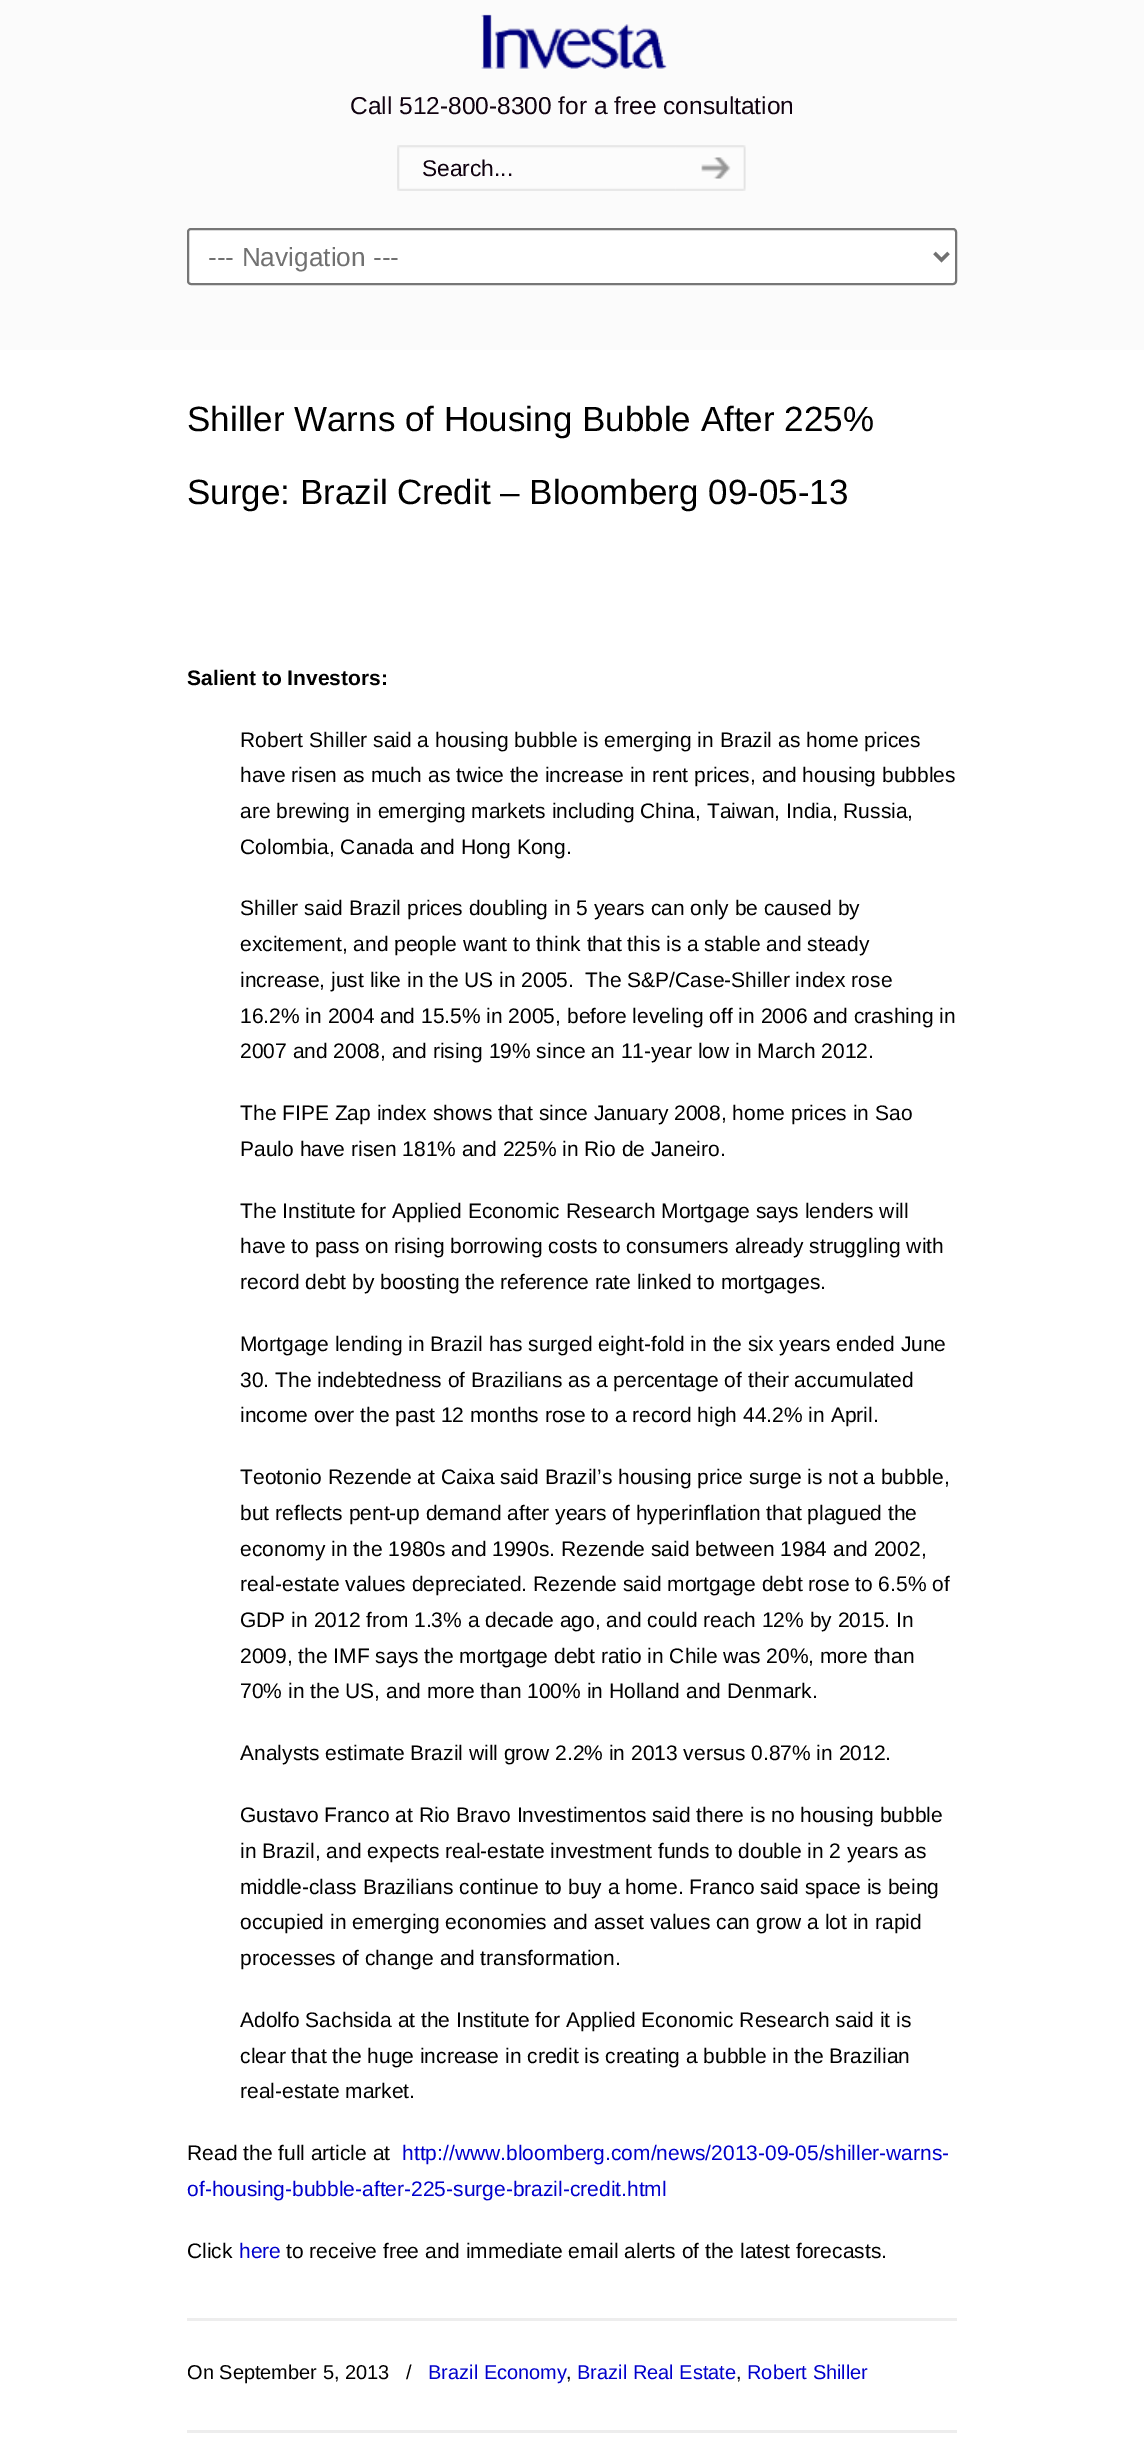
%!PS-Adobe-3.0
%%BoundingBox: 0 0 1144 2440
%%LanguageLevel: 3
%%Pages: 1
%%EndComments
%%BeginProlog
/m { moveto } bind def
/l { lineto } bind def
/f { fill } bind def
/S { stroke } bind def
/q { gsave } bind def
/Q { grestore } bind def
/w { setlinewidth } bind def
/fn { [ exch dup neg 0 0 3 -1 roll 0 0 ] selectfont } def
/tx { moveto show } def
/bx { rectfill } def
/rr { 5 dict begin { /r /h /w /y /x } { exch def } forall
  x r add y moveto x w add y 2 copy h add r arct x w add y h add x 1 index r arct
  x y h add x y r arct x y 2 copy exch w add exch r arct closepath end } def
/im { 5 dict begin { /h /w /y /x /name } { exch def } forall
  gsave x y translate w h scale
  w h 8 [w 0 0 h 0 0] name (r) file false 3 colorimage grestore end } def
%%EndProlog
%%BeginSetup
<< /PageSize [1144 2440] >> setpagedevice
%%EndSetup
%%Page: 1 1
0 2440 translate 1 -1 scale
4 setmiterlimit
0.984 setgray
0 0 1144 2440 bx
(image0.raw) 481 14 186 55 im
/LiberationSans-Regular 24.5 fn
0.059 0.004 0.059 setrgbcolor
(Call 512-800-8300 for a free consultation) 350 114 tx
(image1.raw) 397 145 279 46 im
/LiberationSans-Regular 22.75 fn
(Search...) 422 176 tx
(image2.raw) 675 145 71 46 im
1 setgray
188 229 768 55 3 rr q f Q
0.463 setgray
2 w
S
0.443 setgray
3.5 w
934.5 253 m 941.5 260 l 948.5 253 l S
/LiberationSans-Regular 26.25 fn
(--- Navigation ---) 208 266 tx
1 setgray
0 350 1144 2090 bx
/LiberationSans-Regular 35 fn
0 setgray
(Shiller Warns of Housing Bubble After 225%) 187 431 tx
(Surge: Brazil Credit – Bloomberg 09-05-13) 187 504 tx
/LiberationSans-Bold 21 fn
(Salient to Investors:) 187 685 tx
/LiberationSans-Regular 21 fn
(Robert Shiller said a housing bubble is emerging in Brazil as home prices) 240 747 tx
(have risen as much as twice the increase in rent prices, and housing bubbles) 240 782 tx
(are brewing in emerging markets including China, Taiwan, India, Russia,) 240 818 tx
(Colombia, Canada and Hong Kong.) 240 854 tx
(Shiller said Brazil prices doubling in 5 years can only be caused by) 240 915 tx
(excitement, and people want to think that this is a stable and steady) 240 951 tx
(increase, just like in the US in 2005.  The S&P/Case-Shiller index rose) 240 987 tx
(16.2% in 2004 and 15.5% in 2005, before leveling off in 2006 and crashing in) 240 1023 tx
(2007 and 2008, and rising 19% since an 11-year low in March 2012.) 240 1058 tx
(The FIPE Zap index shows that since January 2008, home prices in Sao) 240 1120 tx
(Paulo have risen 181% and 225% in Rio de Janeiro.) 240 1156 tx
(The Institute for Applied Economic Research Mortgage says lenders will) 240 1218 tx
(have to pass on rising borrowing costs to consumers already struggling with) 240 1253 tx
(record debt by boosting the reference rate linked to mortgages.) 240 1289 tx
(Mortgage lending in Brazil has surged eight-fold in the six years ended June) 240 1351 tx
(30. The indebtedness of Brazilians as a percentage of their accumulated) 240 1387 tx
(income over the past 12 months rose to a record high 44.2% in April.) 240 1422 tx
(Teotonio Rezende at Caixa said Brazil’s housing price surge is not a bubble,) 240 1484 tx
(but reflects pent-up demand after years of hyperinflation that plagued the) 240 1520 tx
(economy in the 1980s and 1990s. Rezende said between 1984 and 2002,) 240 1556 tx
(real-estate values depreciated. Rezende said mortgage debt rose to 6.5% of) 240 1591 tx
(GDP in 2012 from 1.3% a decade ago, and could reach 12% by 2015. In) 240 1627 tx
(2009, the IMF says the mortgage debt ratio in Chile was 20%, more than) 240 1663 tx
(70% in the US, and more than 100% in Holland and Denmark.) 240 1698 tx
(Analysts estimate Brazil will grow 2.2% in 2013 versus 0.87% in 2012.) 240 1760 tx
(Gustavo Franco at Rio Bravo Investimentos said there is no housing bubble) 240 1822 tx
(in Brazil, and expects real-estate investment funds to double in 2 years as) 240 1858 tx
(middle-class Brazilians continue to buy a home. Franco said space is being) 240 1894 tx
(occupied in emerging economies and asset values can grow a lot in rapid) 240 1929 tx
(processes of change and transformation.) 240 1965 tx
(Adolfo Sachsida at the Institute for Applied Economic Research said it is) 240 2027 tx
(clear that the huge increase in credit is creating a bubble in the Brazilian) 240 2063 tx
(real-estate market.) 240 2098 tx
(Read the full article at) 187 2160 tx
0 0 0.8 setrgbcolor
(http://www.bloomberg.com/news/2013-09-05/shiller-warns-) 402 2160 tx
(of-housing-bubble-after-225-surge-brazil-credit.html) 187 2196 tx
0 setgray
(Click) 187 2258 tx
0 0 0.8 setrgbcolor
(here) 239 2258 tx
0 setgray
(to receive free and immediate email alerts of the latest forecasts.) 286 2258 tx
0.929 setgray
187 2318 770 3 bx
/LiberationSans-Regular 20 fn
0 setgray
(On September 5, 2013) 187 2379 tx
(/) 406 2379 tx
0 0 0.8 setrgbcolor
(Brazil Economy) 428 2379 tx
0 setgray
(,) 566 2379 tx
0 0 0.8 setrgbcolor
(Brazil Real Estate) 577 2379 tx
0 setgray
(,) 736 2379 tx
0 0 0.8 setrgbcolor
(Robert Shiller) 747 2379 tx
0.929 setgray
187 2430 770 3 bx
showpage
%%EOF
